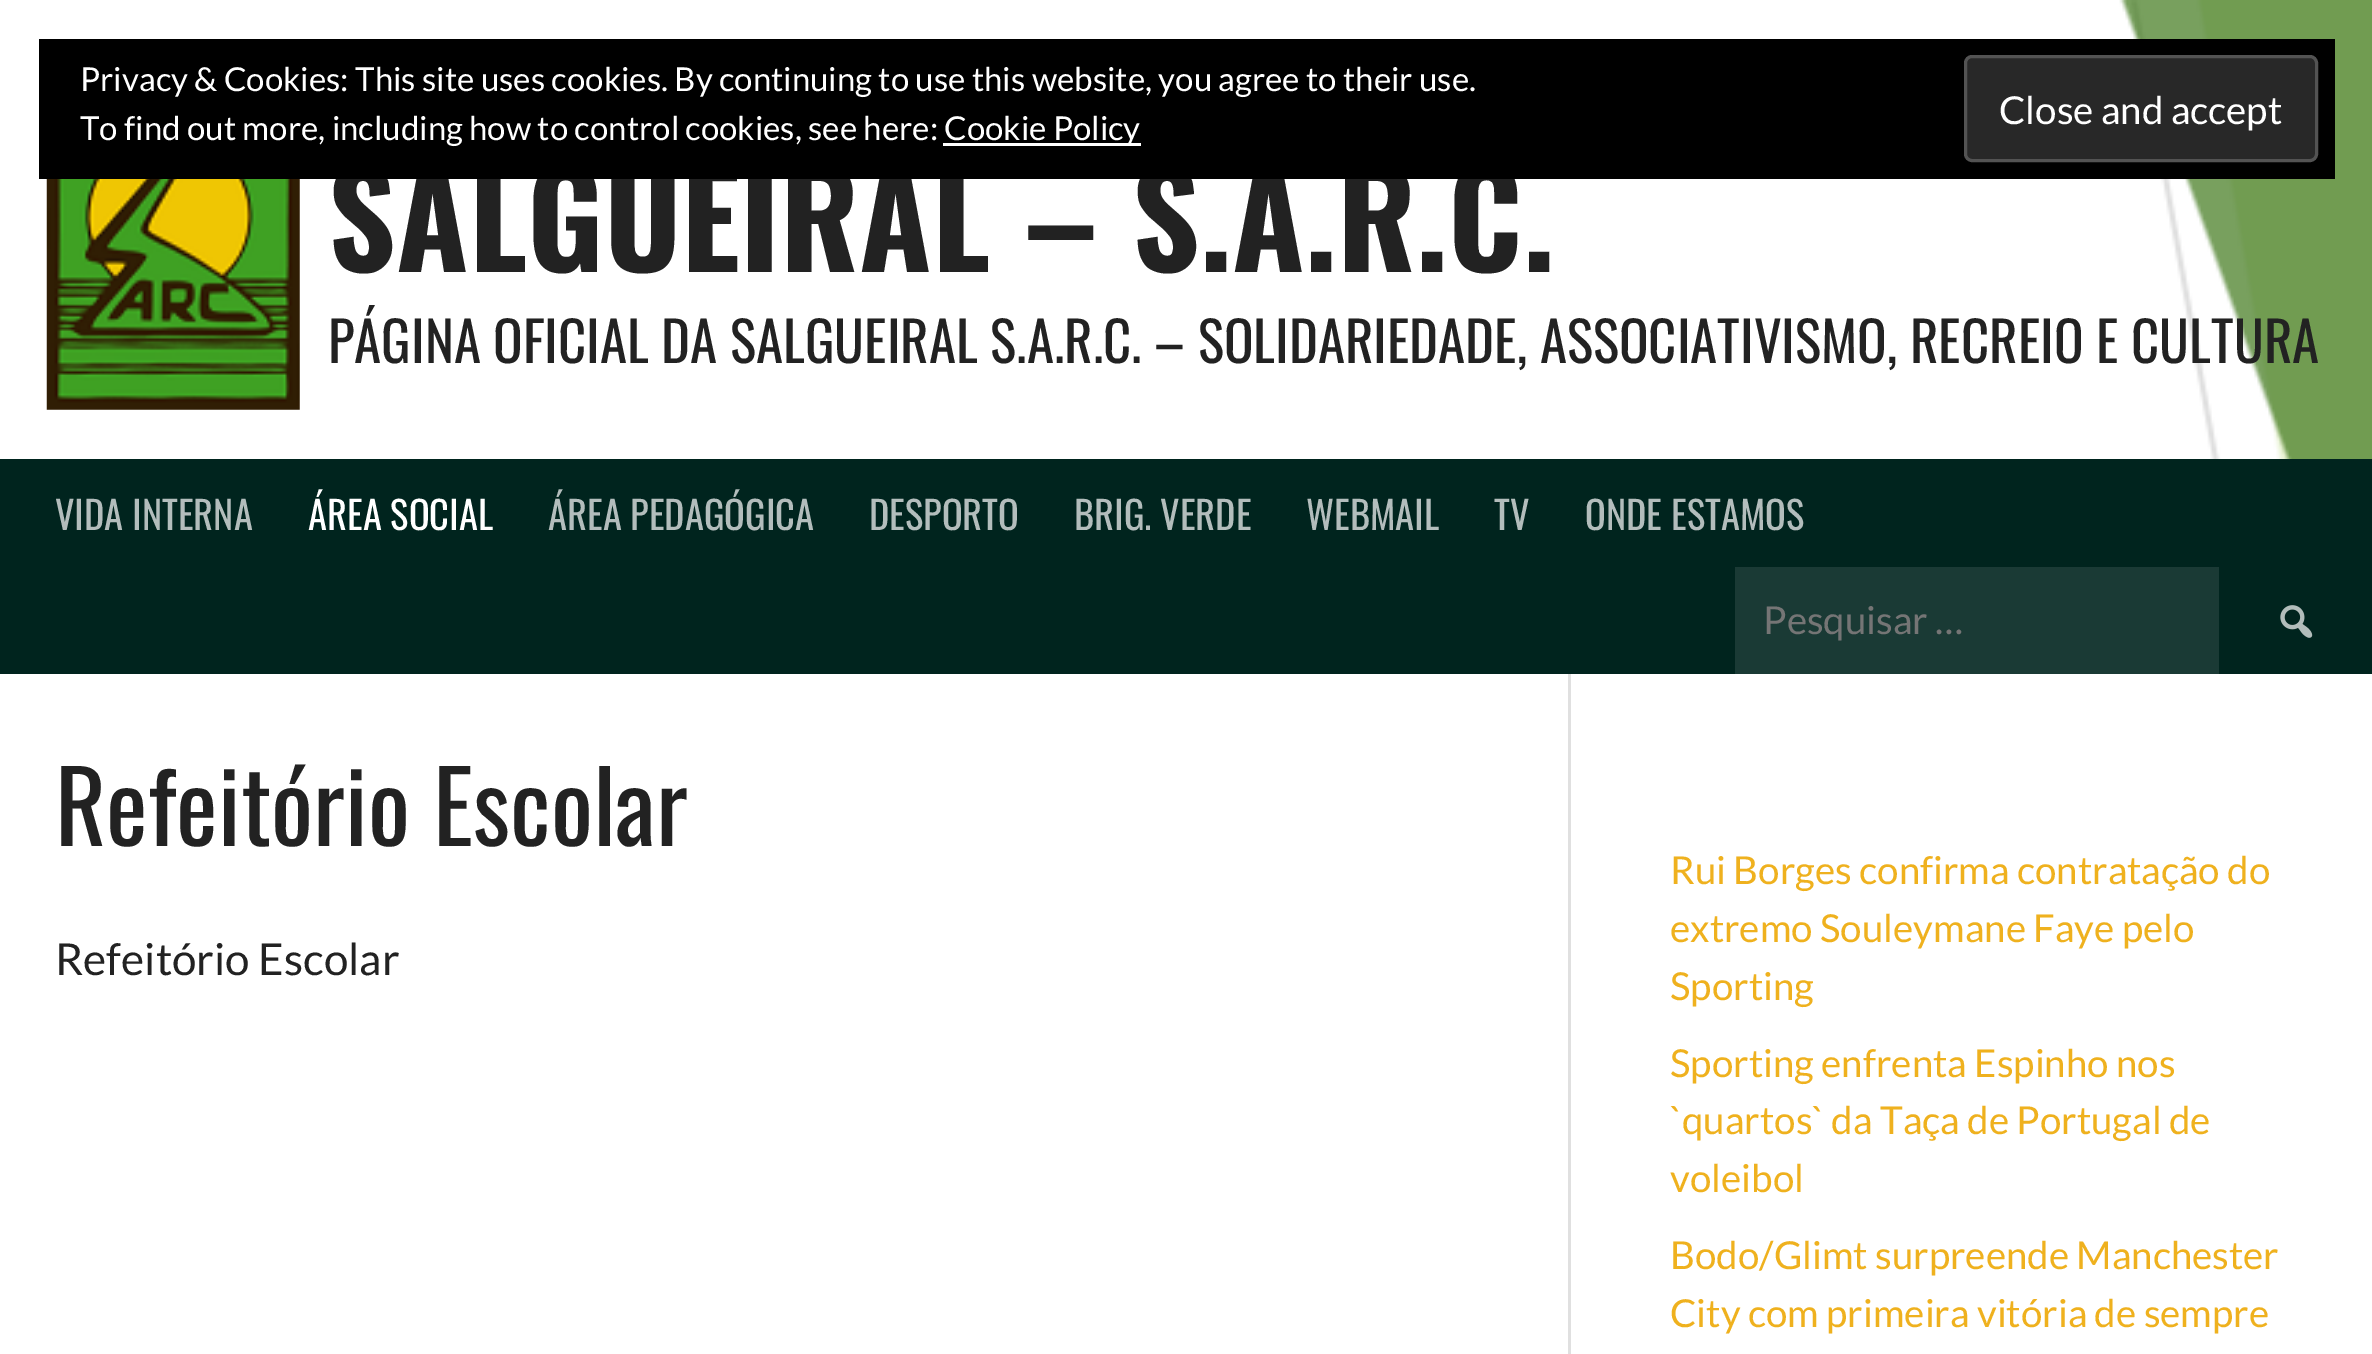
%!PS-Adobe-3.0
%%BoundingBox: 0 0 2372 1354
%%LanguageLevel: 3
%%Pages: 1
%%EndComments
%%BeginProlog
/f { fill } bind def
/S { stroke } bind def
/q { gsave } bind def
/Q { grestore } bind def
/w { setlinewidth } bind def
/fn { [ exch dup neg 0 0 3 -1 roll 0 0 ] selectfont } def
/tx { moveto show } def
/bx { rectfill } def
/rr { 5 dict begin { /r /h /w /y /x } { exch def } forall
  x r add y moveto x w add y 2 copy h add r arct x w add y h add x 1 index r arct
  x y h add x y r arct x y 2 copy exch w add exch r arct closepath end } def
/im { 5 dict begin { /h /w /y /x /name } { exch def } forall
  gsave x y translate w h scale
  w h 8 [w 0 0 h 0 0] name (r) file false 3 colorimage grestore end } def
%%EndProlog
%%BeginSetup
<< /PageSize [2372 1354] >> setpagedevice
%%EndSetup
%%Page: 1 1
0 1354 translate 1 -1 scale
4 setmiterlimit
1 setgray
0 0 2372 1354 bx
(image0.raw) 0 0 2372 459 im
/Oswald-Bold 132 fn
0.133 setgray
(SALGUEIRAL – S.A.R.C.) 328 272 tx
0 setgray
39 39 2296 140 bx
/Lato-Regular 33 fn
1 setgray
(Privacy & Cookies: This site uses cookies. By continuing to use this website, you agree to their use.) 80 91 tx
(To find out more, including how to control cookies, see here:) 80 140 tx
943 143 198 3 bx
(Cookie Policy) 944 140 tx
0.157 setgray
1965.5 56.5 351 104 6.5 rr q f Q
0.325 setgray
3 w
S
/Lato-Regular 38.5 fn
1 setgray
(Close and accept) 1999 124 tx
(image1.raw) 46 179 254 231 im
/Oswald-Regular 55 fn
0.133 setgray
(PÁGINA OFICIAL DA SALGUEIRAL S.A.R.C. – SOLIDARIEDADE, ASSOCIATIVISMO, RECREIO E CULTURA) 328 363 tx
0 0.141 0.118 setrgbcolor
0 459 2372 215 bx
/Oswald-Regular 38.5 fn
0.702 0.741 0.737 setrgbcolor
(VIDA INTERNA) 55 530 tx
1 setgray
(ÁREA SOCIAL) 308 530 tx
0.702 0.741 0.737 setrgbcolor
(ÁREA PEDAGÓGICA) 548 530 tx
(DESPORTO) 869 530 tx
(BRIG. VERDE) 1074 530 tx
(WEBMAIL) 1306 530 tx
(TV) 1494 530 tx
(ONDE ESTAMOS) 1585 530 tx
0.102 0.227 0.208 setrgbcolor
1735 567 484 107 bx
/Lato-Regular 38.5 fn
0.459 setgray
(Pesquisar …) 1763 634 tx
(image2.raw) 2280 605 33 33 im
/Oswald-Regular 99 fn
0.133 setgray
(Refeitório Escolar) 55 846 tx
/Lato-Regular 44 fn
(Refeitório Escolar) 55 975 tx
0.878 setgray
1568 674 3 680 bx
/Lato-Regular 38.5 fn
0.937 0.694 0.118 setrgbcolor
(Rui Borges confirma contratação do) 1670 884 tx
(extremo Souleymane Faye pelo) 1670 942 tx
(Sporting) 1670 1000 tx
(Sporting enfrenta Espinho nos) 1670 1077 tx
(`quartos` da Taça de Portugal de) 1670 1134 tx
(voleibol) 1670 1192 tx
(Bodo/Glimt surpreende Manchester) 1670 1269 tx
(City com primeira vitória de sempre) 1670 1327 tx
showpage
%%EOF
